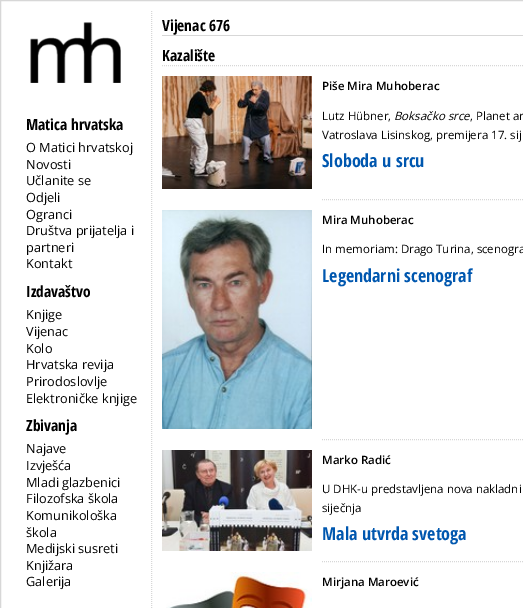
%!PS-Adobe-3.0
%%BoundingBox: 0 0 523 608
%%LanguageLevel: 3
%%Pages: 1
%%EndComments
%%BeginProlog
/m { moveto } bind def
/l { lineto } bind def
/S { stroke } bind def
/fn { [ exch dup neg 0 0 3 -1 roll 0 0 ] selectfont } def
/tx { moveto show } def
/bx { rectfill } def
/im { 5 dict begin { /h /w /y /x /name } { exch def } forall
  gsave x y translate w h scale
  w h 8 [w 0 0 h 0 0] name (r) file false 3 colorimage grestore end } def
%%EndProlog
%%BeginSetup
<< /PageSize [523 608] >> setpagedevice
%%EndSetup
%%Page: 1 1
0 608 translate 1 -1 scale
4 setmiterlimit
1 setgray
0 0 523 608 bx
0.843 setgray
0.5 0.5 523 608 rectstroke
(image0.raw) 30 22 91 61 im
/OpenSansCondensed-Bold 15.5 fn
0 setgray
(Matica hrvatska) 26 130 tx
/OpenSans-Regular 12.75 fn
(O Matici hrvatskoj) 26 152 tx
(Novosti) 26 169 tx
(Učlanite se) 26 185 tx
(Odjeli) 26 202 tx
(Ogranci) 26 219 tx
(Društva prijatelja i) 26 235 tx
(partneri) 26 252 tx
(Kontakt) 26 268 tx
/OpenSansCondensed-Bold 15.5 fn
(Izdavaštvo) 26 297 tx
/OpenSans-Regular 12.75 fn
(Knjige) 26 319 tx
(Vijenac) 26 336 tx
(Kolo) 26 353 tx
(Hrvatska revija) 26 369 tx
(Prirodoslovlje) 26 386 tx
(Elektroničke knjige) 26 403 tx
/OpenSansCondensed-Bold 15.5 fn
(Zbivanja) 26 431 tx
/OpenSans-Regular 12.75 fn
(Najave) 26 453 tx
(Izvješća) 26 470 tx
(Mladi glazbenici) 26 487 tx
(Filozofska škola) 26 503 tx
(Komunikološka) 26 520 tx
(škola) 26 537 tx
(Medijski susreti) 26 553 tx
(Knjižara) 26 570 tx
(Galerija) 26 586 tx
0.843 setgray
[1 1] 0 setdash
151.5 11 m 151.5 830 l S
162 35 361 1 bx
/OpenSansCondensed-Bold 15.5 fn
0 setgray
(Vijenac 676) 162 31 tx
0.843 setgray
162 65.5 m 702 65.5 l S
0 setgray
(Kazalište) 162 61 tx
0.843 setgray
322 199.5 m 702 199.5 l S
(image1.raw) 162 76 150 113 im
/OpenSans-SemiBold 11.5 fn
0 setgray
(Piše Mira Muhoberac) 322 90 tx
/OpenSans-Regular 11.5 fn
(Lutz Hübner,) 322 120 tx
/OpenSans-Italic 11.5 fn
(Boksačko srce) 394 120 tx
/OpenSans-Regular 11.5 fn
(, Planet ar) 470 120 tx
(Vatroslava Lisinskog, premijera 17. sij) 322 139 tx
/OpenSansCondensed-Bold 18 fn
0 0.341 0.686 setrgbcolor
(Sloboda u srcu) 322 167 tx
0.843 setgray
322 439.5 m 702 439.5 l S
(image2.raw) 162 210 150 219 im
/OpenSans-SemiBold 11.5 fn
0 setgray
(Mira Muhoberac) 322 224 tx
/OpenSans-Regular 11.5 fn
(In memoriam: Drago Turina, scenogra) 322 253 tx
/OpenSansCondensed-Bold 18 fn
0 0.341 0.686 setrgbcolor
(Legendarni scenograf) 322 282 tx
0.843 setgray
322 561.5 m 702 561.5 l S
(image3.raw) 162 450 150 101 im
/OpenSans-SemiBold 11.5 fn
0 setgray
(Marko Radić) 322 464 tx
/OpenSans-Regular 11.5 fn
(U DHK-u predstavljena nova nakladni) 322 493 tx
(siječnja) 322 512 tx
/OpenSansCondensed-Bold 18 fn
0 0.341 0.686 setrgbcolor
(Mala utvrda svetoga) 322 540 tx
(image4.raw) 166 572 146 36 im
/OpenSans-SemiBold 11.5 fn
0 setgray
(Mirjana Maroević) 322 586 tx
showpage
%%EOF
